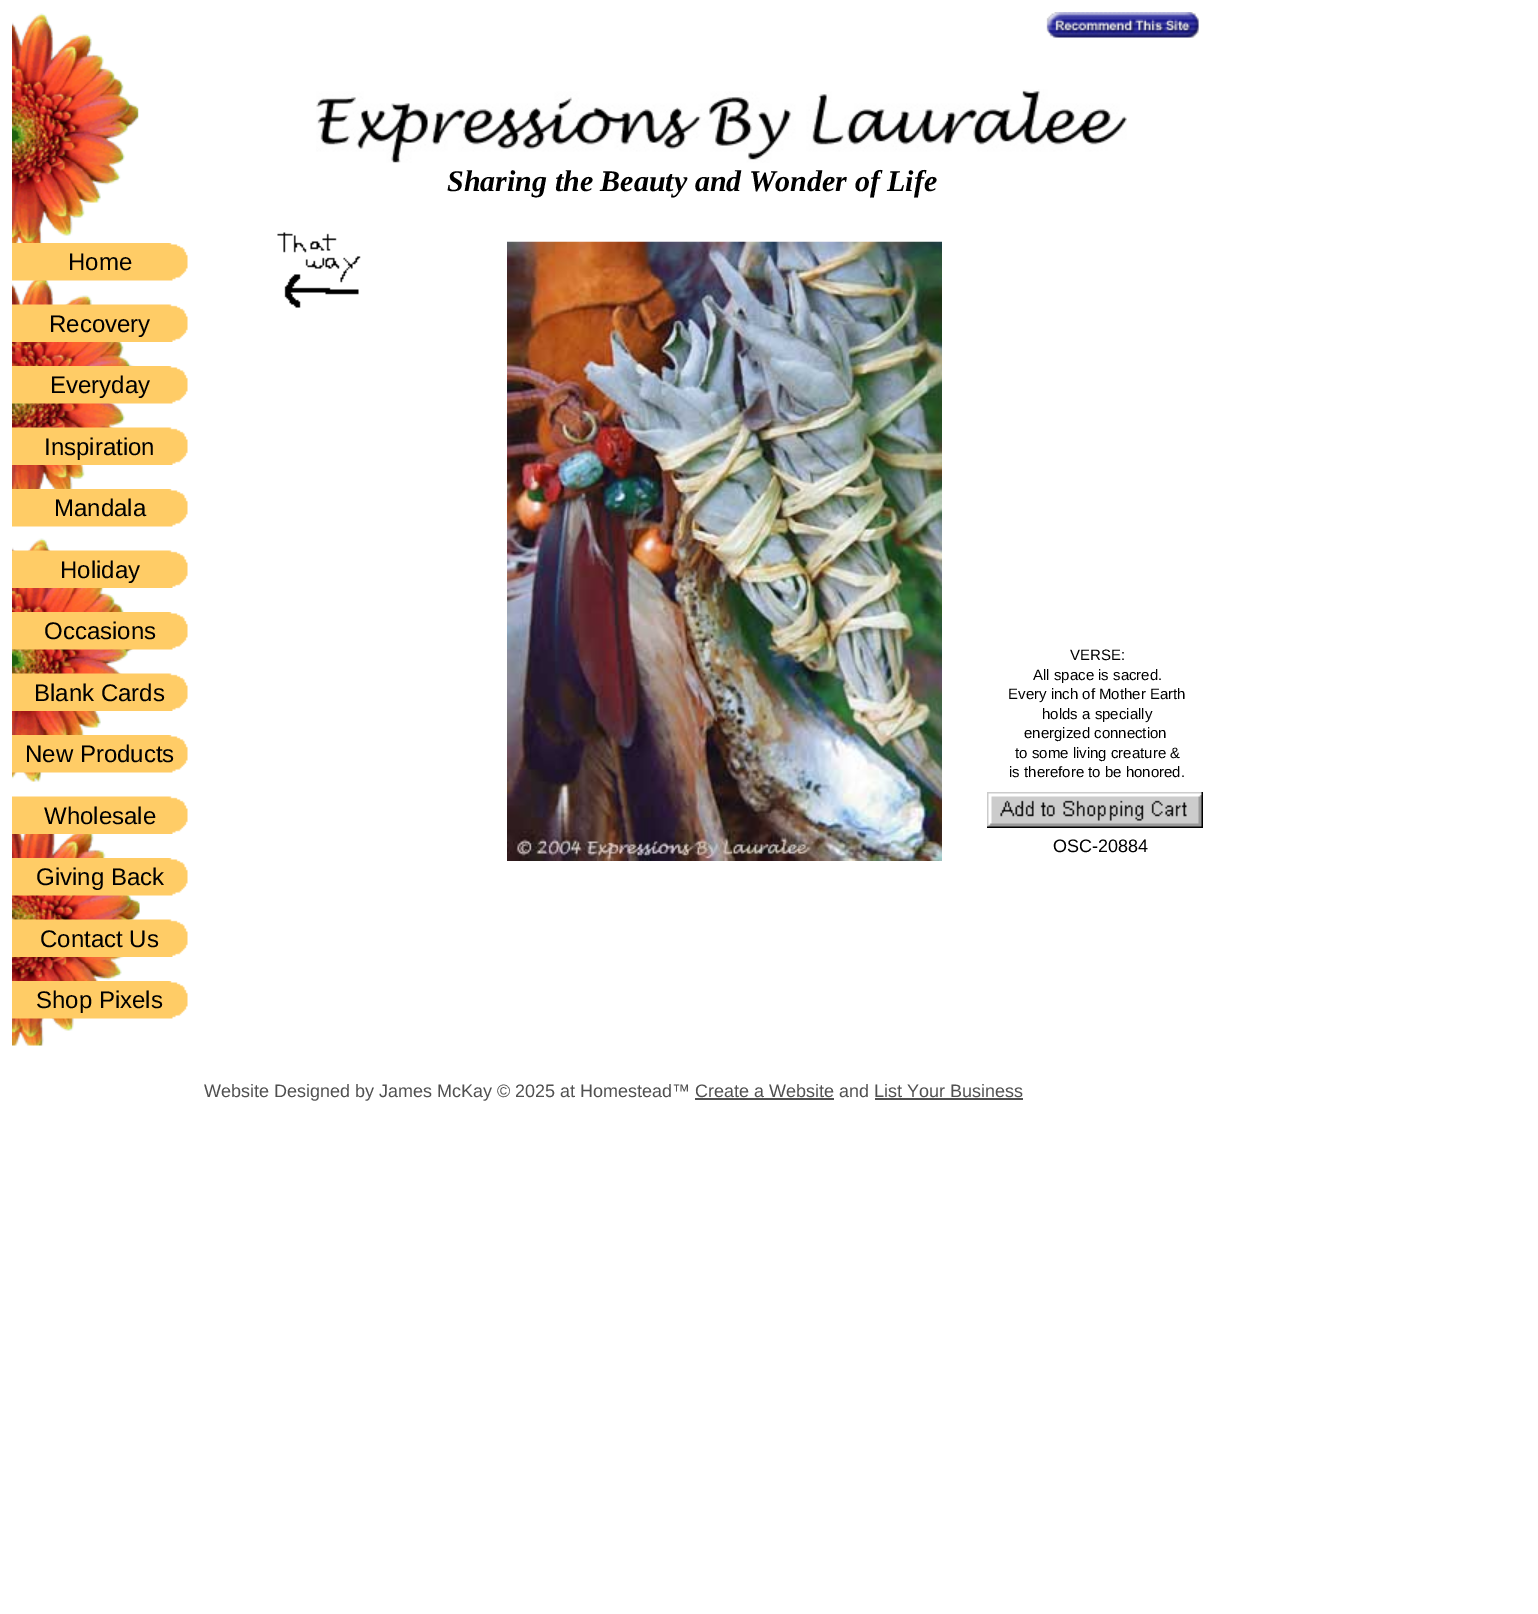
%!PS-Adobe-3.0
%%BoundingBox: 0 0 1538 1614
%%LanguageLevel: 3
%%Pages: 1
%%EndComments
%%BeginProlog
/fn { [ exch dup neg 0 0 3 -1 roll 0 0 ] selectfont } def
/tx { moveto show } def
/bx { rectfill } def
/im { 5 dict begin { /h /w /y /x /name } { exch def } forall
  gsave x y translate w h scale
  w h 8 [w 0 0 h 0 0] name (r) file false 3 colorimage grestore end } def
%%EndProlog
%%BeginSetup
<< /PageSize [1538 1614] >> setpagedevice
%%EndSetup
%%Page: 1 1
0 1614 translate 1 -1 scale
4 setmiterlimit
1 setgray
0 0 1538 1614 bx
(image0.raw) 12 13 128 1033 im
(image1.raw) 1046 12 153 26 im
(image2.raw) 316 89 811 74 im
/LiberationSerif-BoldItalic 30 fn
0 setgray
(Sharing the Beauty and Wonder of Life) 447 191 tx
(image3.raw) 12 243 176 38 im
/LiberationSans-Regular 24 fn
(Home) 68 270 tx
(image4.raw) 12 304 176 38 im
(Recovery) 49 332 tx
(image5.raw) 12 366 176 38 im
(Everyday) 50 393 tx
(image6.raw) 12 427 176 38 im
(Inspiration) 44 455 tx
(image7.raw) 12 489 176 38 im
(Mandala) 54 516 tx
(image8.raw) 12 550 176 38 im
(Holiday) 60 578 tx
(image9.raw) 12 612 176 38 im
(Occasions) 44 639 tx
(image10.raw) 12 673 176 38 im
(Blank Cards) 34 701 tx
(image11.raw) 12 735 176 38 im
(New Products) 25 762 tx
(image12.raw) 12 796 176 38 im
(Wholesale) 44 824 tx
(image13.raw) 12 858 176 38 im
(Giving Back) 36 885 tx
(image14.raw) 12 919 176 38 im
(Contact Us) 40 947 tx
(image15.raw) 12 981 176 38 im
(Shop Pixels) 36 1008 tx
(image16.raw) 277 232 84 76 im
(image17.raw) 507 241 435 620 im
/LiberationSans-Regular 15 fn
(VERSE:) 1070 660 tx
(All space is sacred.) 1033 680 tx
(Every inch of Mother Earth) 1008 699 tx
(holds a specially) 1042 719 tx
(energized connection) 1024 738 tx
(to some living creature &) 1015 758 tx
(is therefore to be honored.) 1009 777 tx
(image18.raw) 987 792 216 36 im
/LiberationSans-Regular 18 fn
(OSC-20884) 1053 852 tx
0.314 setgray
(Website Designed by James McKay © 2025 at Homestead™ Create a Website and List Your Business) 204 1097 tx
695 1098 139 2 bx
875 1098 148 2 bx
showpage
%%EOF
